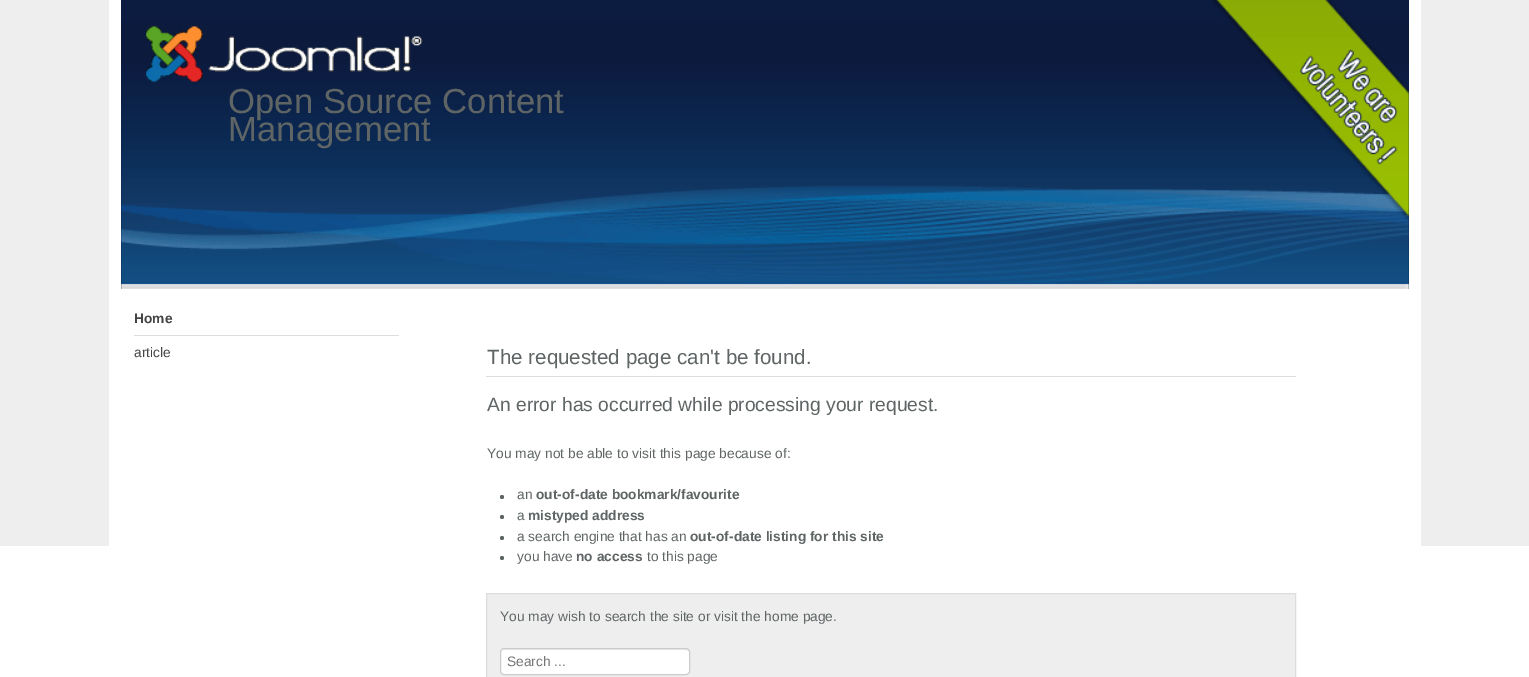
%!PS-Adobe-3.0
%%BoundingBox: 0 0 1529 677
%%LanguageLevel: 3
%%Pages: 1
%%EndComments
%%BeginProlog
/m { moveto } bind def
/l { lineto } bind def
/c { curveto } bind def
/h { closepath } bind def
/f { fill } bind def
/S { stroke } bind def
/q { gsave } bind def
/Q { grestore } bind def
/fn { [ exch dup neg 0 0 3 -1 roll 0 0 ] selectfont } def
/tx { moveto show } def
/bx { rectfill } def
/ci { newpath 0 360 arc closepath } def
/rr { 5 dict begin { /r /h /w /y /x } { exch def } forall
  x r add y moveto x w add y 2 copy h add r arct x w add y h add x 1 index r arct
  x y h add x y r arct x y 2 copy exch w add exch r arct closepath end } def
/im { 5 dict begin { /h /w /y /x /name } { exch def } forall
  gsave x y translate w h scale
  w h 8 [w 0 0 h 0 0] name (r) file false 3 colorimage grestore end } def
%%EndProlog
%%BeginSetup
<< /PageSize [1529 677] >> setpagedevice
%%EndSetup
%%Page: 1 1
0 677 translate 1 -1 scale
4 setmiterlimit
1 setgray
0 0 1529 677 bx
0.933 setgray
0 0 1529 546 bx
1 setgray
109 0 1312 546 bx
(image0.raw) 121 0 1288 289 im
(image1.raw) 146 26 277 56 im
/LiberationSans-Regular 34.75 fn
0.373 0.396 0.396 setrgbcolor
(Open Source Content) 228 113 tx
(Management) 228 141 tx
0.867 setgray
134 335 265 1 bx
/LiberationSans-Bold 13.75 fn
0.267 setgray
(Home) 134 323 tx
/LiberationSans-Regular 13.75 fn
(article) 134 357 tx
0.867 setgray
486 376 810 1 bx
/LiberationSans-Regular 20.6 fn
0.373 0.396 0.396 setrgbcolor
(The requested page can't be found.) 487 364 tx
/LiberationSans-Regular 19.25 fn
(An error has occurred while processing your request.) 487 411 tx
/LiberationSans-Regular 13.75 fn
(You may not be able to visit this page because of:) 487 458 tx
502 497 2 ci f
(an) 517 499 tx
/LiberationSans-Bold 13.75 fn
(out-of-date bookmark/favourite) 536 499 tx
502 517 2 ci f
/LiberationSans-Regular 13.75 fn
(a) 517 520 tx
/LiberationSans-Bold 13.75 fn
(mistyped address) 528 520 tx
502 538 2 ci f
/LiberationSans-Regular 13.75 fn
(a search engine that has an) 517 541 tx
/LiberationSans-Bold 13.75 fn
(out-of-date listing for this site) 690 541 tx
502 558 2 ci f
/LiberationSans-Regular 13.75 fn
(you have) 517 561 tx
/LiberationSans-Bold 13.75 fn
(no access) 576 561 tx
/LiberationSans-Regular 13.75 fn
(to this page) 647 561 tx
0.933 setgray
486.5 593.5 m 1295.5 593.5 l 1295.5 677.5 l 486.5 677.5 l h q f Q
0.867 setgray
S
0.373 0.396 0.396 setrgbcolor
(You may wish to search the site or visit the home page.) 500 621 tx
1 setgray
500 648 190 27 4 rr f
0.925 setgray
504 650 m 686 650 l 688 650 689 651 689 652 c 689 650 688 649 686 649 c 504 649 l 502 650 l 501 652 l 501 651 502 650 504 650 c h f
0.8 setgray
500.5 648.5 189 26 3.5 rr S
0.459 setgray
(Search ...) 507 666 tx
showpage
%%EOF
